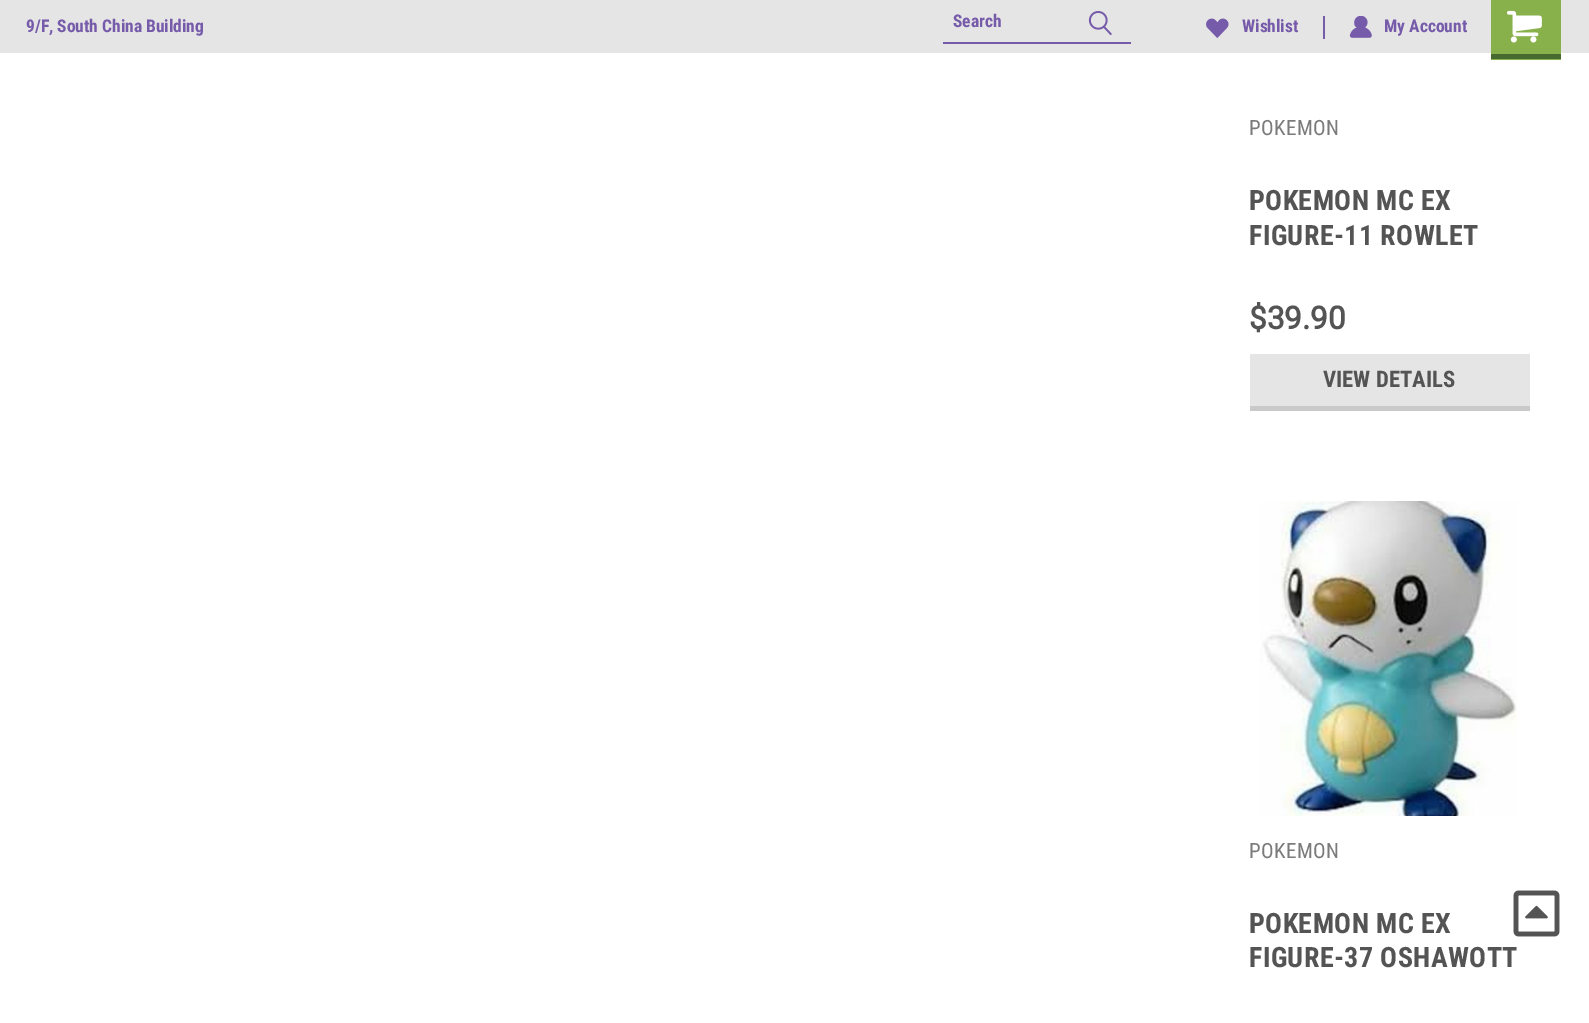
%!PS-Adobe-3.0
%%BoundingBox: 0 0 1589 1023
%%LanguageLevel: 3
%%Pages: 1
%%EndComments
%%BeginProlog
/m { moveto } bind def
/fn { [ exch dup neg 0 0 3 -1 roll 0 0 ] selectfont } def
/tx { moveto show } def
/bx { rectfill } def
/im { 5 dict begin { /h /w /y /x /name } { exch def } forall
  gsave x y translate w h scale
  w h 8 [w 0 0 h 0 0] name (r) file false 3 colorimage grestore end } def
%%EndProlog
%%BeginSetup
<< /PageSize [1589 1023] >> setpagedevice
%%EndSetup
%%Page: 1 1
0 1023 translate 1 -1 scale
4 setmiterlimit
1 setgray
0 0 1589 1023 bx
0.898 setgray
0 0 1589 53 bx
/RobotoCondensed-Bold 17.5 fn
0.467 0.357 0.671 setrgbcolor
(9/F, South China Building) 26 32 tx
943 42 188 2 bx
(Search) 953 27 tx
(image0.raw) 1088 11 24 24 im
1323 16 2 23 bx
(image1.raw) 1206 18 23 20 im
(Wishlist) 1242 32 tx
(image2.raw) 1349 16 23 22 im
(My Account) 1384 32 tx
0.533 0.69 0.294 setrgbcolor
1491 0 70 60 bx
0.278 0.416 0.188 setrgbcolor
1491 54 70 5 bx
(image3.raw) 1507 10 35 33 im
/RobotoCondensed-Regular 21 fn
0.482 setgray
1249 135 m 0.4 0 (POKEMON) ashow
/RobotoCondensed-Bold 28 fn
0.329 setgray
1249 210 m 0.4 0 (POKEMON MC EX) ashow
1249 245 m 0.4 0 (FIGURE-11 ROWLET) ashow
/Roboto-Bold 31.5 fn
($39.90) 1249 329 tx
0.898 setgray
1250 354 280 52 bx
0.788 setgray
1250 406 280 5 bx
/RobotoCondensed-Bold 22.75 fn
0.329 setgray
(VIEW DETAILS) 1323 387 tx
(image4.raw) 1260 501 257 315 im
/RobotoCondensed-Regular 21 fn
0.482 setgray
1249 858 m 0.4 0 (POKEMON) ashow
/RobotoCondensed-Bold 28 fn
0.329 setgray
1249 933 m 0.4 0 (POKEMON MC EX) ashow
1249 967 m 0.4 0 (FIGURE-37 OSHAWOTT) ashow
(image5.raw) 1513 890 47 47 im
showpage
%%EOF
